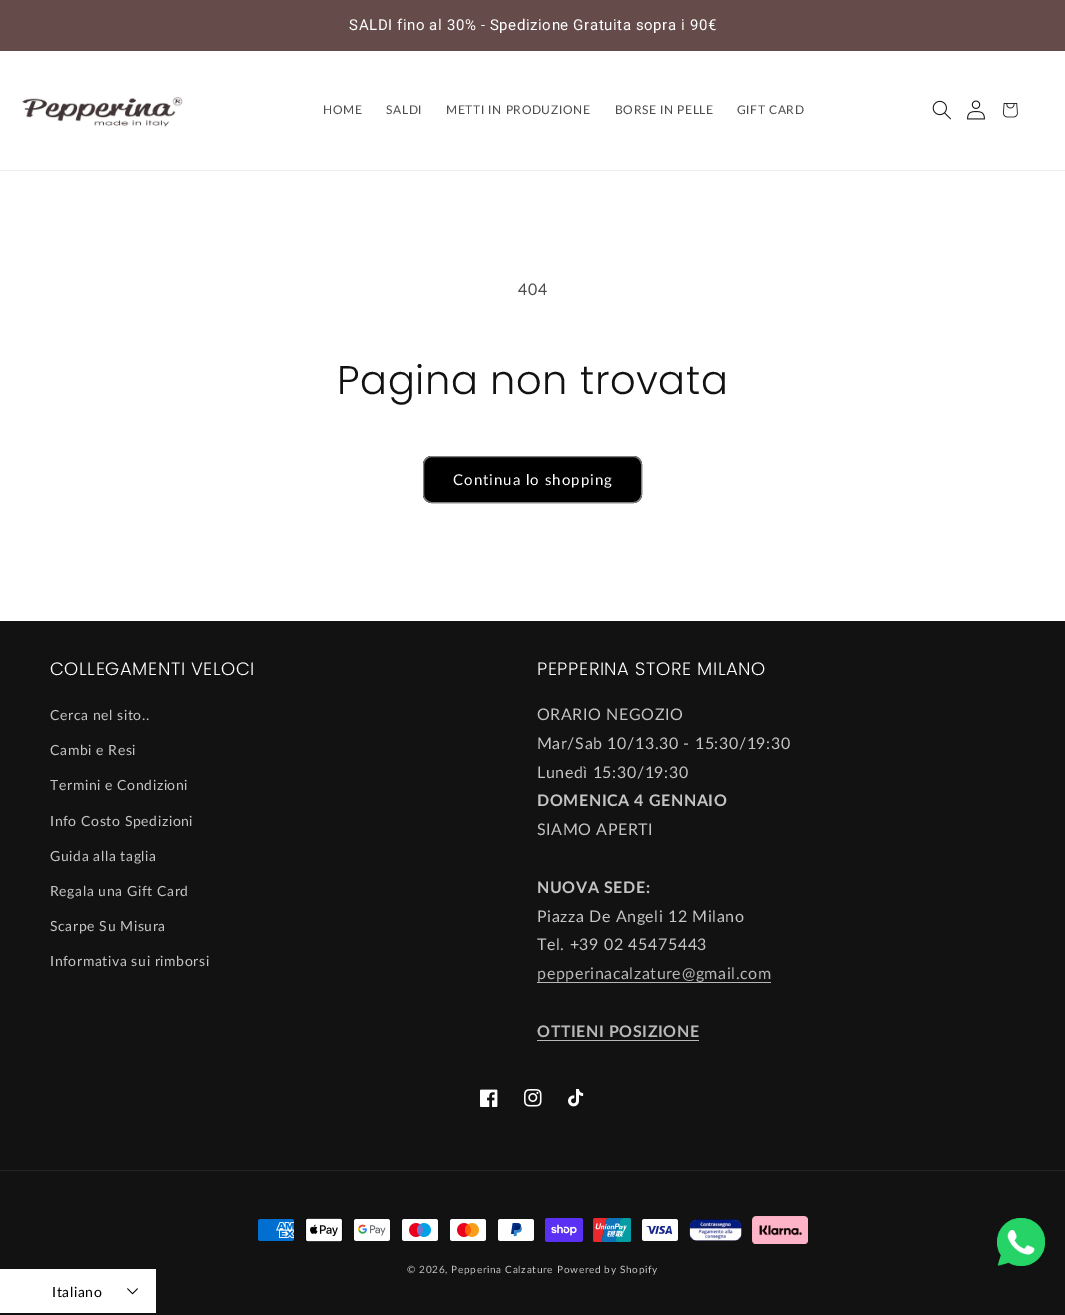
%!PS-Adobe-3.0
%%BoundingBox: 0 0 1065 1315
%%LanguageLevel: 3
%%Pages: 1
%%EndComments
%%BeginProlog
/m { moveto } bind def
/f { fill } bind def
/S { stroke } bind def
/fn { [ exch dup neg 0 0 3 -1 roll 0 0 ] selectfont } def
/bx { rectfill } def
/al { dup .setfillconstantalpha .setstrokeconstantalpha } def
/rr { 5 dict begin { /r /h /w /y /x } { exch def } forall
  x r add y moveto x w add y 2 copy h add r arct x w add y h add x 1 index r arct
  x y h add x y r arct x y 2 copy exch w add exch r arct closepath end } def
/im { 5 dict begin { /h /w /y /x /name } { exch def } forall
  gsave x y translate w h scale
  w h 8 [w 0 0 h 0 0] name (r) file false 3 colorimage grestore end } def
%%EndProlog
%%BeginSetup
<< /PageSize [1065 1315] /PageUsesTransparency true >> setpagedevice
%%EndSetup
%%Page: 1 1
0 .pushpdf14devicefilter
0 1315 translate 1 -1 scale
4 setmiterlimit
1 setgray
0 0 1065 1315 bx
0.4 0.294 0.294 setrgbcolor
0 0 1065 51 bx
/Roboto-Regular 15 fn
1 setgray
349 30 m 0.6 0 (SALDI fino al 30% - Spedizione Gratuita sopra i 90€) ashow
0.925 setgray
0 170 1065 1 bx
(image0.raw) 22 97 161 30 im
/Lato-Regular 12 fn
0.302 setgray
323 114 m 0.6 0 (HOME) ashow
386 114 m 0.6 0 (SALDI) ashow
446 114 m 0.6 0 (METTI IN PRODUZIONE) ashow
615 114 m 0.6 0 (BORSE IN PELLE) ashow
737 114 m 0.6 0 (GIFT CARD) ashow
(image1.raw) 932 100 19 20 im
(image2.raw) 967 100 18 20 im
(image3.raw) 1003 103 15 15 im
/Lato-Regular 16 fn
518 295 m 0.6 0 (404) ashow
/Poppins-Light 40 fn
0.071 setgray
337 394 m 0.6 0 (Pagina non trovata) ashow
0 setgray
423 456 219 47 9 rr f
423.5 456.5 218 46 8.5 rr S
0.5 al
1 setgray
423.5 456.5 218 46 8.5 rr S
/Lato-Regular 15 fn
1 al
453 485 m 1 0 (Continua lo shopping) ashow
0.071 setgray
0 621 1065 694 bx
/Poppins-Light 18 fn
1 setgray
50 675 m 0.6 0 (COLLEGAMENTI VELOCI) ashow
/Lato-Regular 14 fn
0.769 setgray
50 720 m 0.6 0 (Cerca nel sito..) ashow
50 755 m 0.6 0 (Cambi e Resi) ashow
50 790 m 0.6 0 (Termini e Condizioni) ashow
50 826 m 0.6 0 (Info Costo Spedizioni) ashow
50 861 m 0.6 0 (Guida alla taglia) ashow
50 896 m 0.6 0 (Regala una Gift Card) ashow
50 931 m 0.6 0 (Scarpe Su Misura) ashow
50 966 m 0.6 0 (Informativa sui rimborsi) ashow
/Poppins-Light 18 fn
1 setgray
537 675 m 0.6 0 (PEPPERINA STORE MILANO) ashow
/Lato-Regular 16 fn
0.769 setgray
537 720 m 0.6 0 (ORARIO NEGOZIO) ashow
537 749 m 0.6 0 (Mar/Sab 10/13.30 - 15:30/19:30) ashow
537 778 m 0.6 0 (Lunedì 15:30/19:30) ashow
/Lato-Bold 16 fn
537 806 m 0.6 0 (DOMENICA 4 GENNAIO) ashow
/Lato-Regular 16 fn
537 835 m 0.6 0 (SIAMO APERTI) ashow
/Lato-Bold 16 fn
537 893 m 0.6 0 (NUOVA SEDE:) ashow
/Lato-Regular 16 fn
537 922 m 0.6 0 (Piazza De Angeli 12 Milano) ashow
537 950 m 0.6 0 (Tel. +39 02 45475443) ashow
0.722 setgray
537 979 m 0.6 0 (pepperinacalzature@gmail.com) ashow
537 982 234 1 bx
/Lato-Bold 16 fn
537 1037 m 0.6 0 (OTTIENI POSIZIONE) ashow
537 1040 162 1 bx
(image4.raw) 480 1089 18 18 im
(image5.raw) 524 1089 18 18 im
(image6.raw) 568 1089 16 18 im
0.145 setgray
0 1170 1065 1 bx
(image7.raw) 258 1219 36 22 im
(image8.raw) 305 1218 38 24 im
(image9.raw) 354 1219 36 22 im
(image10.raw) 402 1219 36 22 im
(image11.raw) 450 1219 36 22 im
(image12.raw) 498 1219 36 22 im
(image13.raw) 545 1218 38 24 im
(image14.raw) 593 1218 38 24 im
(image15.raw) 642 1219 36 22 im
(image16.raw) 689 1219 53 22 im
(image17.raw) 752 1216 56 28 im
/Lato-Regular 10 fn
0.769 setgray
407 1273 m 0.7 0 (© 2026, Pepperina Calzature) ashow
557 1273 m 0.7 0 (Powered by Shopify) ashow
(image18.raw) 997 1218 48 48 im
(image19.raw) 997 1218 48 48 im
1 setgray
0 1269 156 44 bx
/Lato-Regular 14 fn
0 setgray
52 1297 m 0.6 0 (Italiano) ashow
(image20.raw) 127 1288 11 7 im
.poppdf14devicefilter showpage
%%EOF
